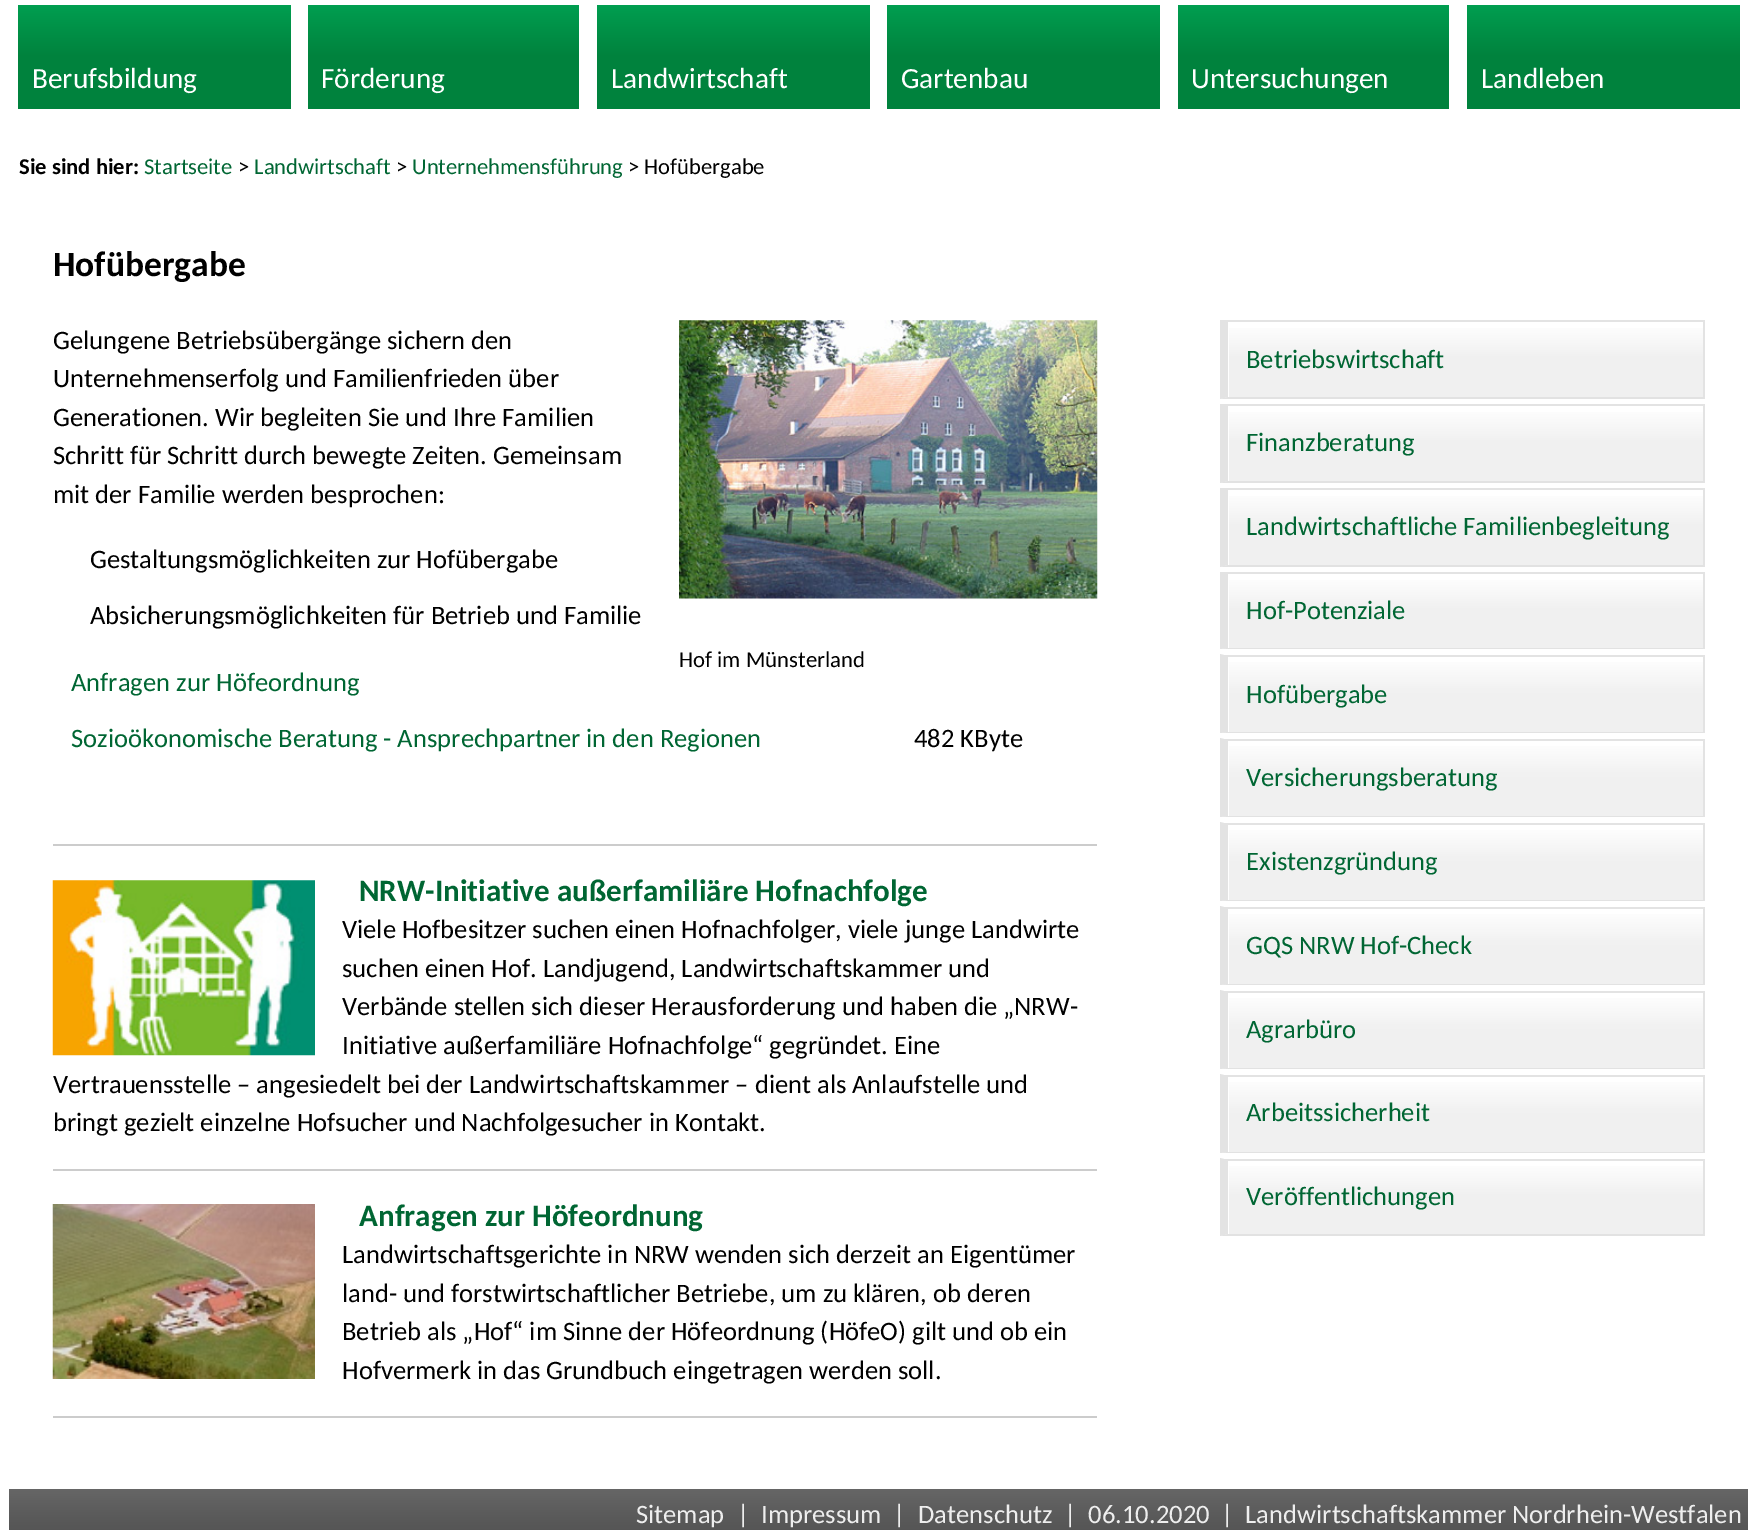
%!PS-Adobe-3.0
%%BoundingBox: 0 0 1757 1530
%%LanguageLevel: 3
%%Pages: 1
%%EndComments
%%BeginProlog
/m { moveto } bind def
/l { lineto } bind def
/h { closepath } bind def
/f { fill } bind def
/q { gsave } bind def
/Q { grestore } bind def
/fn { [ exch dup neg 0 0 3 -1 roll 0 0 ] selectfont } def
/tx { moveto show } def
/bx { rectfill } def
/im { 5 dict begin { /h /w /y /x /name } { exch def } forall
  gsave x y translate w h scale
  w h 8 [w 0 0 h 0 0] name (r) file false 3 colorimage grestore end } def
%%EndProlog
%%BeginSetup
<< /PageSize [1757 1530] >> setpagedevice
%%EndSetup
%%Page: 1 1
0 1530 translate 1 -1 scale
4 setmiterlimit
1 setgray
0 0 1757 1530 bx
q 18 5 m 291 5 l 291 109 l 18 109 l h clip newpath
<< /ShadingType 2 /ColorSpace /DeviceRGB /Coords [18 5.2 18 57] /Extend [true true] /Function << /FunctionType 2 /Domain [0 1] /C0 [0 0.62 0.314] /C1 [0 0.51 0.239] /N 1 >> >> shfill Q
/Carlito-Regular 29.25 fn
(Berufsbildung) 32 88 tx
q 308 5 m 579 5 l 579 109 l 308 109 l h clip newpath
<< /ShadingType 2 /ColorSpace /DeviceRGB /Coords [308 5.2 308 57] /Extend [true true] /Function << /FunctionType 2 /Domain [0 1] /C0 [0 0.62 0.314] /C1 [0 0.51 0.239] /N 1 >> >> shfill Q
(Förderung) 321 88 tx
q 597 5 m 870 5 l 870 109 l 597 109 l h clip newpath
<< /ShadingType 2 /ColorSpace /DeviceRGB /Coords [597 5.2 597 57] /Extend [true true] /Function << /FunctionType 2 /Domain [0 1] /C0 [0 0.62 0.314] /C1 [0 0.51 0.239] /N 1 >> >> shfill Q
(Landwirtschaft) 611 88 tx
q 887 5 m 1160 5 l 1160 109 l 887 109 l h clip newpath
<< /ShadingType 2 /ColorSpace /DeviceRGB /Coords [887 5.2 887 57] /Extend [true true] /Function << /FunctionType 2 /Domain [0 1] /C0 [0 0.62 0.314] /C1 [0 0.51 0.239] /N 1 >> >> shfill Q
(Gartenbau) 901 88 tx
q 1178 5 m 1449 5 l 1449 109 l 1178 109 l h clip newpath
<< /ShadingType 2 /ColorSpace /DeviceRGB /Coords [1178 5.2 1178 57] /Extend [true true] /Function << /FunctionType 2 /Domain [0 1] /C0 [0 0.62 0.314] /C1 [0 0.51 0.239] /N 1 >> >> shfill Q
(Untersuchungen) 1191 88 tx
q 1467 5 m 1740 5 l 1740 109 l 1467 109 l h clip newpath
<< /ShadingType 2 /ColorSpace /DeviceRGB /Coords [1467 5.2 1467 57] /Extend [true true] /Function << /FunctionType 2 /Domain [0 1] /C0 [0 0.62 0.314] /C1 [0 0.51 0.239] /N 1 >> >> shfill Q
(Landleben) 1481 88 tx
/Carlito-Bold 22.6 fn
0 setgray
(Sie sind hier:) 19 174 tx
/Carlito-Regular 22.6 fn
0 0.4 0.2 setrgbcolor
(Startseite) 144 174 tx
0 setgray
(>) 238 174 tx
0 0.4 0.2 setrgbcolor
(Landwirtschaft) 254 174 tx
0 setgray
(>) 396 174 tx
0 0.4 0.2 setrgbcolor
(Unternehmensführung) 412 174 tx
0 setgray
(> Hofübergabe) 628 174 tx
/Carlito-Bold 35.5 fn
(Hofübergabe) 53 276 tx
/Carlito-Regular 26.6 fn
(Gelungene Betriebsübergänge sichern den) 53 349 tx
(Unternehmenserfolg und Familienfrieden über) 53 387 tx
(Generationen. Wir begleiten Sie und Ihre Familien) 53 426 tx
(Schritt für Schritt durch bewegte Zeiten. Gemeinsam) 53 464 tx
(mit der Familie werden besprochen:) 53 503 tx
(Gestaltungsmöglichkeiten zur Hofübergabe) 90 568 tx
(Absicherungsmöglichkeiten für Betrieb und Familie) 90 624 tx
(image0.raw) 679 320 419 279 im
/Carlito-Regular 22.75 fn
(Hof im Münsterland) 679 667 tx
/Carlito-Regular 26.6 fn
0 0.4 0.2 setrgbcolor
(Anfragen zur Höfeordnung) 71 691 tx
(Sozioökonomische Beratung - Ansprechpartner in den Regionen) 71 747 tx
0 setgray
(482 KByte) 914 747 tx
0.8 setgray
53 844 1044 2 bx
(image1.raw) 52 880 263 176 im
/Carlito-Bold 31.1 fn
0 0.4 0.2 setrgbcolor
(NRW-Initiative außerfamiliäre Hofnachfolge) 359 901 tx
/Carlito-Regular 26.6 fn
0 setgray
(Viele Hofbesitzer suchen einen Hofnachfolger, viele junge Landwirte) 342 938 tx
(suchen einen Hof. Landjugend, Landwirtschaftskammer und) 342 977 tx
(Verbände stellen sich dieser Herausforderung und haben die „NRW-) 342 1015 tx
(Initiative außerfamiliäre Hofnachfolge“ gegründet. Eine) 342 1054 tx
(Vertrauensstelle – angesiedelt bei der Landwirtschaftskammer – dient als Anlaufstelle und) 53 1093 tx
(bringt gezielt einzelne Hofsucher und Nachfolgesucher in Kontakt.) 53 1131 tx
0.8 setgray
53 1169 1044 2 bx
(image2.raw) 52 1204 263 175 im
/Carlito-Bold 31.1 fn
0 0.4 0.2 setrgbcolor
(Anfragen zur Höfeordnung) 359 1226 tx
/Carlito-Regular 26.6 fn
0 setgray
(Landwirtschaftsgerichte in NRW wenden sich derzeit an Eigentümer) 342 1263 tx
(land- und forstwirtschaftlicher Betriebe, um zu klären, ob deren) 342 1302 tx
(Betrieb als „Hof“ im Sinne der Höfeordnung \(HöfeO\) gilt und ob ein) 342 1340 tx
(Hofvermerk in das Grundbuch eingetragen werden soll.) 342 1379 tx
0.8 setgray
53 1416 1044 2 bx
q 1229 328 m 1703 328 l 1703 397 l 1229 397 l h clip newpath
<< /ShadingType 2 /ColorSpace /DeviceRGB /Coords [1466 322 1466 397] /Extend [true true] /Function << /FunctionType 3 /Domain [0 1] /Functions [<< /FunctionType 2 /Domain [0 1] /C0 [1 1 1] /C1 [0.941 0.941 0.941] /N 1 >> << /FunctionType 2 /Domain [0 1] /C0 [0.941 0.941 0.941] /C1 [0.941 0.941 0.941] /N 1 >>] /Bounds [0.5] /Encode [0 1 0 1] >> >> shfill Q
0.89 setgray
1220 320 485 2 bx
1703 320 2 79 bx
0.886 setgray
1704 399 m 1220 399 l 1228 397 l 1703 397 l h f
0.89 setgray
1220 399 m 1220 320 l 1228 322 l 1228 397 l h f
0 0.4 0.2 setrgbcolor
(Betriebswirtschaft) 1246 368 tx
q 1229 412 m 1703 412 l 1703 481 l 1229 481 l h clip newpath
<< /ShadingType 2 /ColorSpace /DeviceRGB /Coords [1466 406 1466 481] /Extend [true true] /Function << /FunctionType 3 /Domain [0 1] /Functions [<< /FunctionType 2 /Domain [0 1] /C0 [1 1 1] /C1 [0.941 0.941 0.941] /N 1 >> << /FunctionType 2 /Domain [0 1] /C0 [0.941 0.941 0.941] /C1 [0.941 0.941 0.941] /N 1 >>] /Bounds [0.5] /Encode [0 1 0 1] >> >> shfill Q
0.89 setgray
1220 404 485 2 bx
1703 404 2 79 bx
0.886 setgray
1704 483 m 1220 483 l 1228 481 l 1703 481 l h f
0.89 setgray
1220 483 m 1220 404 l 1228 406 l 1228 481 l h f
0 0.4 0.2 setrgbcolor
(Finanzberatung) 1246 451 tx
q 1229 496 m 1703 496 l 1703 565 l 1229 565 l h clip newpath
<< /ShadingType 2 /ColorSpace /DeviceRGB /Coords [1466 490 1466 565] /Extend [true true] /Function << /FunctionType 3 /Domain [0 1] /Functions [<< /FunctionType 2 /Domain [0 1] /C0 [1 1 1] /C1 [0.941 0.941 0.941] /N 1 >> << /FunctionType 2 /Domain [0 1] /C0 [0.941 0.941 0.941] /C1 [0.941 0.941 0.941] /N 1 >>] /Bounds [0.5] /Encode [0 1 0 1] >> >> shfill Q
0.89 setgray
1220 488 485 2 bx
1703 488 2 79 bx
0.886 setgray
1704 567 m 1220 567 l 1228 565 l 1703 565 l h f
0.89 setgray
1220 567 m 1220 488 l 1228 490 l 1228 565 l h f
0 0.4 0.2 setrgbcolor
(Landwirtschaftliche Familienbegleitung) 1246 535 tx
q 1229 580 m 1703 580 l 1703 648 l 1229 648 l h clip newpath
<< /ShadingType 2 /ColorSpace /DeviceRGB /Coords [1466 574 1466 648] /Extend [true true] /Function << /FunctionType 3 /Domain [0 1] /Functions [<< /FunctionType 2 /Domain [0 1] /C0 [1 1 1] /C1 [0.941 0.941 0.941] /N 1 >> << /FunctionType 2 /Domain [0 1] /C0 [0.941 0.941 0.941] /C1 [0.941 0.941 0.941] /N 1 >>] /Bounds [0.5] /Encode [0 1 0 1] >> >> shfill Q
0.89 setgray
1220 572 485 2 bx
1703 572 2 77 bx
0.886 setgray
1704 649 m 1220 649 l 1228 648 l 1703 648 l h f
0.89 setgray
1220 649 m 1220 572 l 1228 574 l 1228 648 l h f
0 0.4 0.2 setrgbcolor
(Hof-Potenziale) 1246 619 tx
q 1229 662 m 1703 662 l 1703 732 l 1229 732 l h clip newpath
<< /ShadingType 2 /ColorSpace /DeviceRGB /Coords [1466 656 1466 732] /Extend [true true] /Function << /FunctionType 3 /Domain [0 1] /Functions [<< /FunctionType 2 /Domain [0 1] /C0 [1 1 1] /C1 [0.941 0.941 0.941] /N 1 >> << /FunctionType 2 /Domain [0 1] /C0 [0.941 0.941 0.941] /C1 [0.941 0.941 0.941] /N 1 >>] /Bounds [0.5] /Encode [0 1 0 1] >> >> shfill Q
0.89 setgray
1220 655 485 2 bx
1703 655 2 78 bx
0.886 setgray
1704 733 m 1220 733 l 1228 732 l 1703 732 l h f
0.89 setgray
1220 733 m 1220 654 l 1228 656 l 1228 732 l h f
0 0.4 0.2 setrgbcolor
(Hofübergabe) 1246 703 tx
q 1229 746 m 1703 746 l 1703 816 l 1229 816 l h clip newpath
<< /ShadingType 2 /ColorSpace /DeviceRGB /Coords [1466 740 1466 816] /Extend [true true] /Function << /FunctionType 3 /Domain [0 1] /Functions [<< /FunctionType 2 /Domain [0 1] /C0 [1 1 1] /C1 [0.941 0.941 0.941] /N 1 >> << /FunctionType 2 /Domain [0 1] /C0 [0.941 0.941 0.941] /C1 [0.941 0.941 0.941] /N 1 >>] /Bounds [0.5] /Encode [0 1 0 1] >> >> shfill Q
0.89 setgray
1220 739 485 2 bx
1703 739 2 78 bx
0.886 setgray
1704 817 m 1220 817 l 1228 816 l 1703 816 l h f
0.89 setgray
1220 817 m 1220 738 l 1228 740 l 1228 816 l h f
0 0.4 0.2 setrgbcolor
(Versicherungsberatung) 1246 786 tx
q 1229 830 m 1703 830 l 1703 900 l 1229 900 l h clip newpath
<< /ShadingType 2 /ColorSpace /DeviceRGB /Coords [1466 824 1466 900] /Extend [true true] /Function << /FunctionType 3 /Domain [0 1] /Functions [<< /FunctionType 2 /Domain [0 1] /C0 [1 1 1] /C1 [0.941 0.941 0.941] /N 1 >> << /FunctionType 2 /Domain [0 1] /C0 [0.941 0.941 0.941] /C1 [0.941 0.941 0.941] /N 1 >>] /Bounds [0.5] /Encode [0 1 0 1] >> >> shfill Q
0.89 setgray
1220 823 485 2 bx
1703 823 2 78 bx
0.886 setgray
1704 901 m 1220 901 l 1228 900 l 1703 900 l h f
0.89 setgray
1220 901 m 1220 822 l 1228 824 l 1228 900 l h f
0 0.4 0.2 setrgbcolor
(Existenzgründung) 1246 870 tx
q 1229 914 m 1703 914 l 1703 984 l 1229 984 l h clip newpath
<< /ShadingType 2 /ColorSpace /DeviceRGB /Coords [1466 908 1466 984] /Extend [true true] /Function << /FunctionType 3 /Domain [0 1] /Functions [<< /FunctionType 2 /Domain [0 1] /C0 [1 1 1] /C1 [0.941 0.941 0.941] /N 1 >> << /FunctionType 2 /Domain [0 1] /C0 [0.941 0.941 0.941] /C1 [0.941 0.941 0.941] /N 1 >>] /Bounds [0.5] /Encode [0 1 0 1] >> >> shfill Q
0.89 setgray
1220 907 485 2 bx
1703 907 2 78 bx
0.886 setgray
1704 985 m 1220 985 l 1228 984 l 1703 984 l h f
0.89 setgray
1220 985 m 1220 906 l 1228 908 l 1228 984 l h f
0 0.4 0.2 setrgbcolor
(GQS NRW Hof-Check) 1246 954 tx
q 1229 998 m 1703 998 l 1703 1068 l 1229 1068 l h clip newpath
<< /ShadingType 2 /ColorSpace /DeviceRGB /Coords [1466 992 1466 1068] /Extend [true true] /Function << /FunctionType 3 /Domain [0 1] /Functions [<< /FunctionType 2 /Domain [0 1] /C0 [1 1 1] /C1 [0.941 0.941 0.941] /N 1 >> << /FunctionType 2 /Domain [0 1] /C0 [0.941 0.941 0.941] /C1 [0.941 0.941 0.941] /N 1 >>] /Bounds [0.5] /Encode [0 1 0 1] >> >> shfill Q
0.89 setgray
1220 991 485 2 bx
1703 991 2 78 bx
0.886 setgray
1704 1069 m 1220 1069 l 1228 1068 l 1703 1068 l h f
0.89 setgray
1220 1069 m 1220 990 l 1228 992 l 1228 1068 l h f
0 0.4 0.2 setrgbcolor
(Agrarbüro) 1246 1038 tx
q 1229 1082 m 1703 1082 l 1703 1152 l 1229 1152 l h clip newpath
<< /ShadingType 2 /ColorSpace /DeviceRGB /Coords [1466 1076 1466 1152] /Extend [true true] /Function << /FunctionType 3 /Domain [0 1] /Functions [<< /FunctionType 2 /Domain [0 1] /C0 [1 1 1] /C1 [0.941 0.941 0.941] /N 1 >> << /FunctionType 2 /Domain [0 1] /C0 [0.941 0.941 0.941] /C1 [0.941 0.941 0.941] /N 1 >>] /Bounds [0.5] /Encode [0 1 0 1] >> >> shfill Q
0.89 setgray
1220 1075 485 2 bx
1703 1075 2 78 bx
0.886 setgray
1704 1153 m 1220 1153 l 1228 1152 l 1703 1152 l h f
0.89 setgray
1220 1153 m 1220 1074 l 1228 1076 l 1228 1152 l h f
0 0.4 0.2 setrgbcolor
(Arbeitssicherheit) 1246 1121 tx
q 1229 1166 m 1703 1166 l 1703 1234 l 1229 1234 l h clip newpath
<< /ShadingType 2 /ColorSpace /DeviceRGB /Coords [1466 1160 1466 1234] /Extend [true true] /Function << /FunctionType 3 /Domain [0 1] /Functions [<< /FunctionType 2 /Domain [0 1] /C0 [1 1 1] /C1 [0.941 0.941 0.941] /N 1 >> << /FunctionType 2 /Domain [0 1] /C0 [0.941 0.941 0.941] /C1 [0.941 0.941 0.941] /N 1 >>] /Bounds [0.5] /Encode [0 1 0 1] >> >> shfill Q
0.89 setgray
1220 1159 485 2 bx
1703 1159 2 77 bx
0.886 setgray
1704 1236 m 1220 1236 l 1228 1234 l 1703 1234 l h f
0.89 setgray
1220 1236 m 1220 1158 l 1228 1160 l 1228 1234 l h f
0 0.4 0.2 setrgbcolor
(Veröffentlichungen) 1246 1205 tx
q 9 1489 m 1748 1489 l 1748 1530 l 9 1530 l h clip newpath
<< /ShadingType 2 /ColorSpace /DeviceRGB /Coords [879 1489 879 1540] /Extend [true true] /Function << /FunctionType 3 /Domain [0 1] /Functions [<< /FunctionType 2 /Domain [0 1] /C0 [0.4 0.4 0.4] /C1 [0.333 0.333 0.333] /N 1 >> << /FunctionType 2 /Domain [0 1] /C0 [0.333 0.333 0.333] /C1 [0.333 0.333 0.333] /N 1 >>] /Bounds [0.8] /Encode [0 1 0 1] >> >> shfill Q
0.933 setgray
(Sitemap) 636 1523 tx
(|) 737 1523 tx
(Impressum) 761 1523 tx
(|) 893 1523 tx
(Datenschutz) 918 1523 tx
(|  06.10.2020) 1064 1523 tx
(|  Landwirtschaftskammer Nordrhein-Westfalen) 1221 1523 tx
showpage
%%EOF
